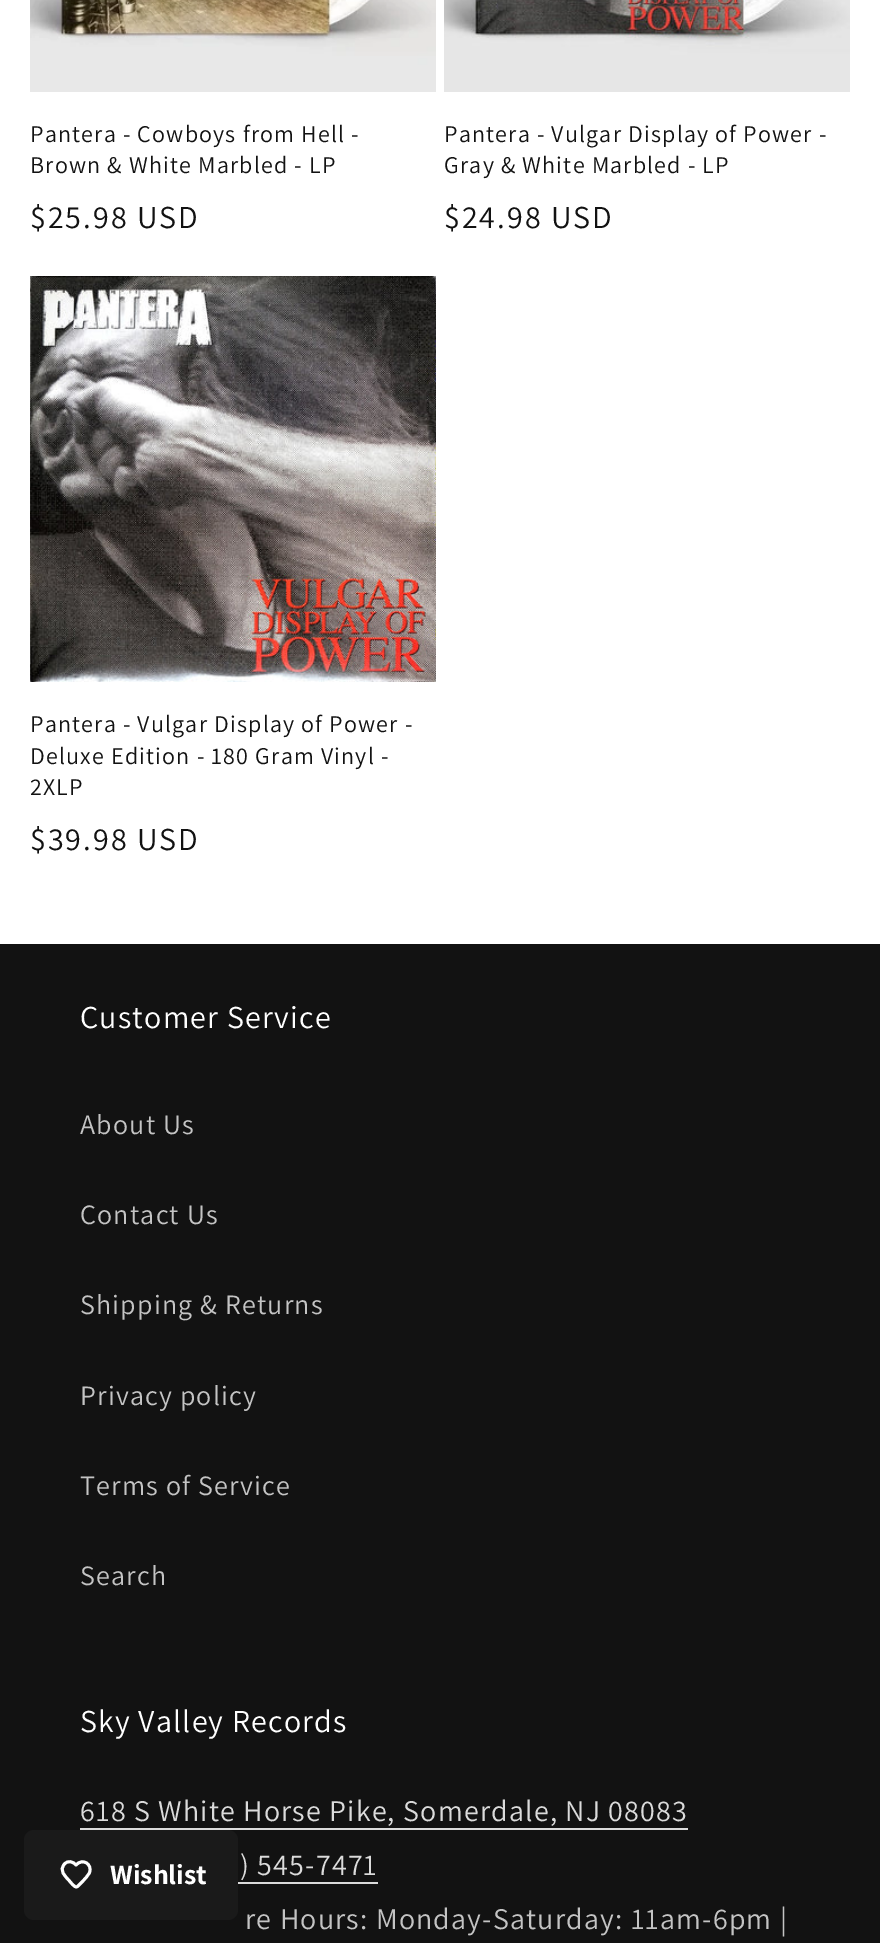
%!PS-Adobe-3.0
%%BoundingBox: 0 0 880 1943
%%LanguageLevel: 3
%%Pages: 1
%%EndComments
%%BeginProlog
/m { moveto } bind def
/l { lineto } bind def
/c { curveto } bind def
/h { closepath } bind def
/f { fill } bind def
/S { stroke } bind def
/w { setlinewidth } bind def
/fn { [ exch dup neg 0 0 3 -1 roll 0 0 ] selectfont } def
/tx { moveto show } def
/bx { rectfill } def
/rr { 5 dict begin { /r /h /w /y /x } { exch def } forall
  x r add y moveto x w add y 2 copy h add r arct x w add y h add x 1 index r arct
  x y h add x y r arct x y 2 copy exch w add exch r arct closepath end } def
/im { 5 dict begin { /h /w /y /x /name } { exch def } forall
  gsave x y translate w h scale
  w h 8 [w 0 0 h 0 0] name (r) file false 3 colorimage grestore end } def
%%EndProlog
%%BeginSetup
<< /PageSize [880 1943] >> setpagedevice
%%EndSetup
%%Page: 1 1
0 1943 translate 1 -1 scale
4 setmiterlimit
1 setgray
0 0 880 1943 bx
(image0.raw) 30 0 406 92 im
/Assistant-Regular 24 fn
0.071 setgray
30 142 m 1.2 0 (Pantera - Cowboys from Hell -) ashow
30 173 m 1.2 0 (Brown & White Marbled - LP) ashow
/Assistant-Regular 32 fn
30 228 m 2 0 ($25.98 USD) ashow
(image1.raw) 444 0 406 92 im
/Assistant-Regular 24 fn
444 142 m 1.2 0 (Pantera - Vulgar Display of Power -) ashow
444 173 m 1.2 0 (Gray & White Marbled - LP) ashow
/Assistant-Regular 32 fn
444 228 m 2 0 ($24.98 USD) ashow
(image2.raw) 30 276 406 406 im
/Assistant-Regular 24 fn
30 732 m 1.2 0 (Pantera - Vulgar Display of Power -) ashow
30 764 m 1.2 0 (Deluxe Edition - 180 Gram Vinyl -) ashow
30 795 m 1.2 0 (2XLP) ashow
/Assistant-Regular 32 fn
30 850 m 2 0 ($39.98 USD) ashow
0 944 880 999 bx
1 setgray
80 1028 m 1.2 0 (Customer Service) ashow
/Assistant-Regular 28 fn
0.769 setgray
80 1134 m 1.2 0 (About Us) ashow
80 1224 m 1.2 0 (Contact Us) ashow
80 1314 m 1.2 0 (Shipping & Returns) ashow
80 1405 m 1.2 0 (Privacy policy) ashow
80 1495 m 1.2 0 (Terms of Service) ashow
80 1585 m 1.2 0 (Search) ashow
/Assistant-Regular 32 fn
1 setgray
80 1732 m 1.2 0 (Sky Valley Records) ashow
/Assistant-Regular 30 fn
0.859 setgray
80 1821 m 1.2 0 (618 S White Horse Pike, Somerdale, NJ 08083) ashow
80 1828 608 2 bx
240 1875 m 1.2 0 (\) 545-7471) ashow
238 1882 140 2 bx
0.769 setgray
245 1929 m 1.2 0 (re Hours: Monday-Saturday: 11am-6pm |) ashow
0.102 setgray
24 1830 214 90 10 rr f
1 setgray
2.9 w
1 setlinecap
1 setlinejoin
64.5 1864 m 68 1860 73 1861.5 76 1865 c 83 1857.5 92.5 1864.5 89.5 1872.5 c 88 1876 85 1878.5 83 1881 c 77.5 1886.5 l 75.5 1888 74 1885.5 72.5 1884.5 c 69.5 1881 l 65 1876 58.5 1870.5 64.5 1864 c h S
/Assistant-Bold 28 fn
(Wishlist) 110 1884 tx
showpage
%%EOF
